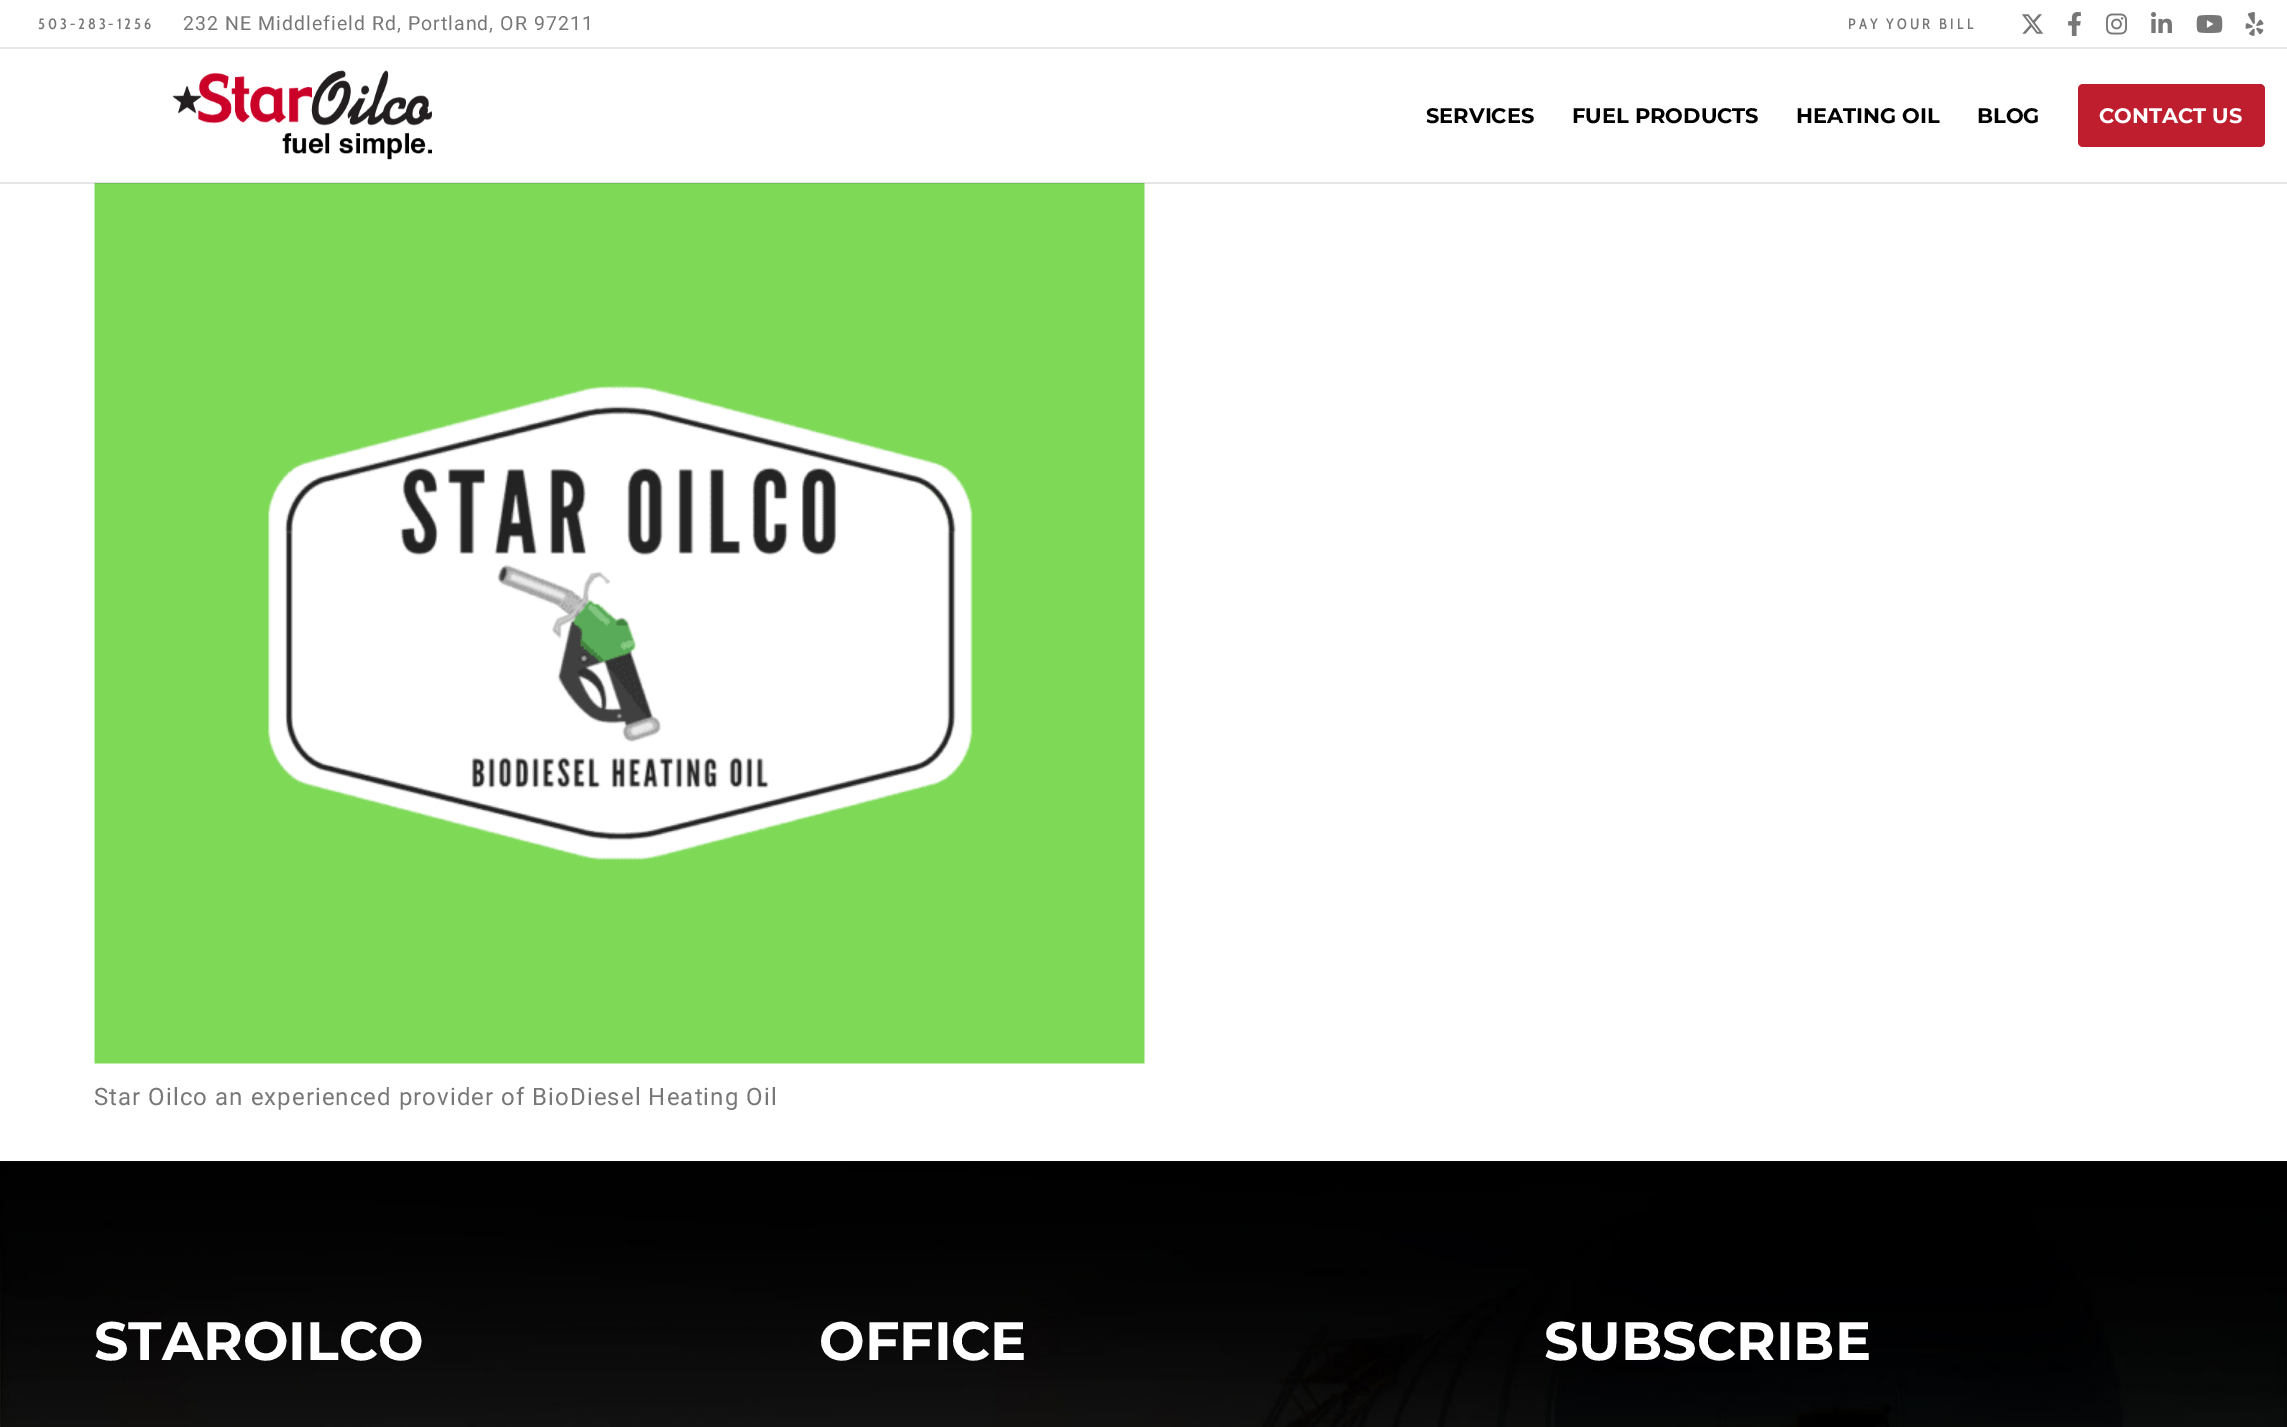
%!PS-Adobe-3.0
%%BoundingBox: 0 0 2287 1427
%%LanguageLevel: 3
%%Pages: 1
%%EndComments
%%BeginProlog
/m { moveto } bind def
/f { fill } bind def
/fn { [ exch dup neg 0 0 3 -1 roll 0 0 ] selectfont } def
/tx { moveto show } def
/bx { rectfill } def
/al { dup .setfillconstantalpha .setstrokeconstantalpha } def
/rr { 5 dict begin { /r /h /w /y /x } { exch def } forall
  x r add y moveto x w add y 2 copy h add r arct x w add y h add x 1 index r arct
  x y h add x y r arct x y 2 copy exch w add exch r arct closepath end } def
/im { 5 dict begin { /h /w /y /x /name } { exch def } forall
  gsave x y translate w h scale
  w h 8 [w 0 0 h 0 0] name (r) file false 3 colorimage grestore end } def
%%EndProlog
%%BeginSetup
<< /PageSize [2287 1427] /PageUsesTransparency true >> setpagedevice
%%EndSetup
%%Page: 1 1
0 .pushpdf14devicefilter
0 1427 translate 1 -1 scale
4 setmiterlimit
1 setgray
0 0 2287 1427 bx
0.91 setgray
0 47 2287 2 bx
/CabinCondensed-Medium 15 fn
0.467 setgray
38 29 m 3 0 (503-283-1256) ashow
/Roboto-Regular 19.5 fn
183 30 m 1.05 0 (232 NE Middlefield Rd, Portland, OR 97211) ashow
/CabinCondensed-Medium 15 fn
1848 29 m 3 0 (PAY YOUR BILL) ashow
(image0.raw) 2021 14 23 20 im
(image1.raw) 2068 12 13 24 im
(image2.raw) 2106 13 21 22 im
(image3.raw) 2151 12 21 21 im
(image4.raw) 2196 15 27 18 im
(image5.raw) 2245 12 19 24 im
(image7.raw) 94 183 1051 881 im
0.1 al
0 setgray
0 182 2287 2 bx
1 al
(image6.raw) 172 70 260 90 im
/Montserrat-Thin 21 fn
(SERVICES) 1426 123 tx
(FUEL PRODUCTS) 1572 123 tx
(HEATING OIL) 1796 123 tx
(BLOG) 1977 123 tx
0.749 0.118 0.18 setrgbcolor
2078 84 187 63 5 rr f
1 setgray
(CONTACT US) 2099 123 tx
/Roboto-Regular 24 fn
0.467 setgray
94 1105 m 1.05 0 (Star Oilco an experienced provider of BioDiesel Heating Oil) ashow
(image8.raw) 0 1161 2287 266 im
/Montserrat-Thin 54 fn
1 setgray
(STAROILCO) 94 1360 tx
(OFFICE) 819 1360 tx
(SUBSCRIBE) 1544 1360 tx
.poppdf14devicefilter showpage
%%EOF
